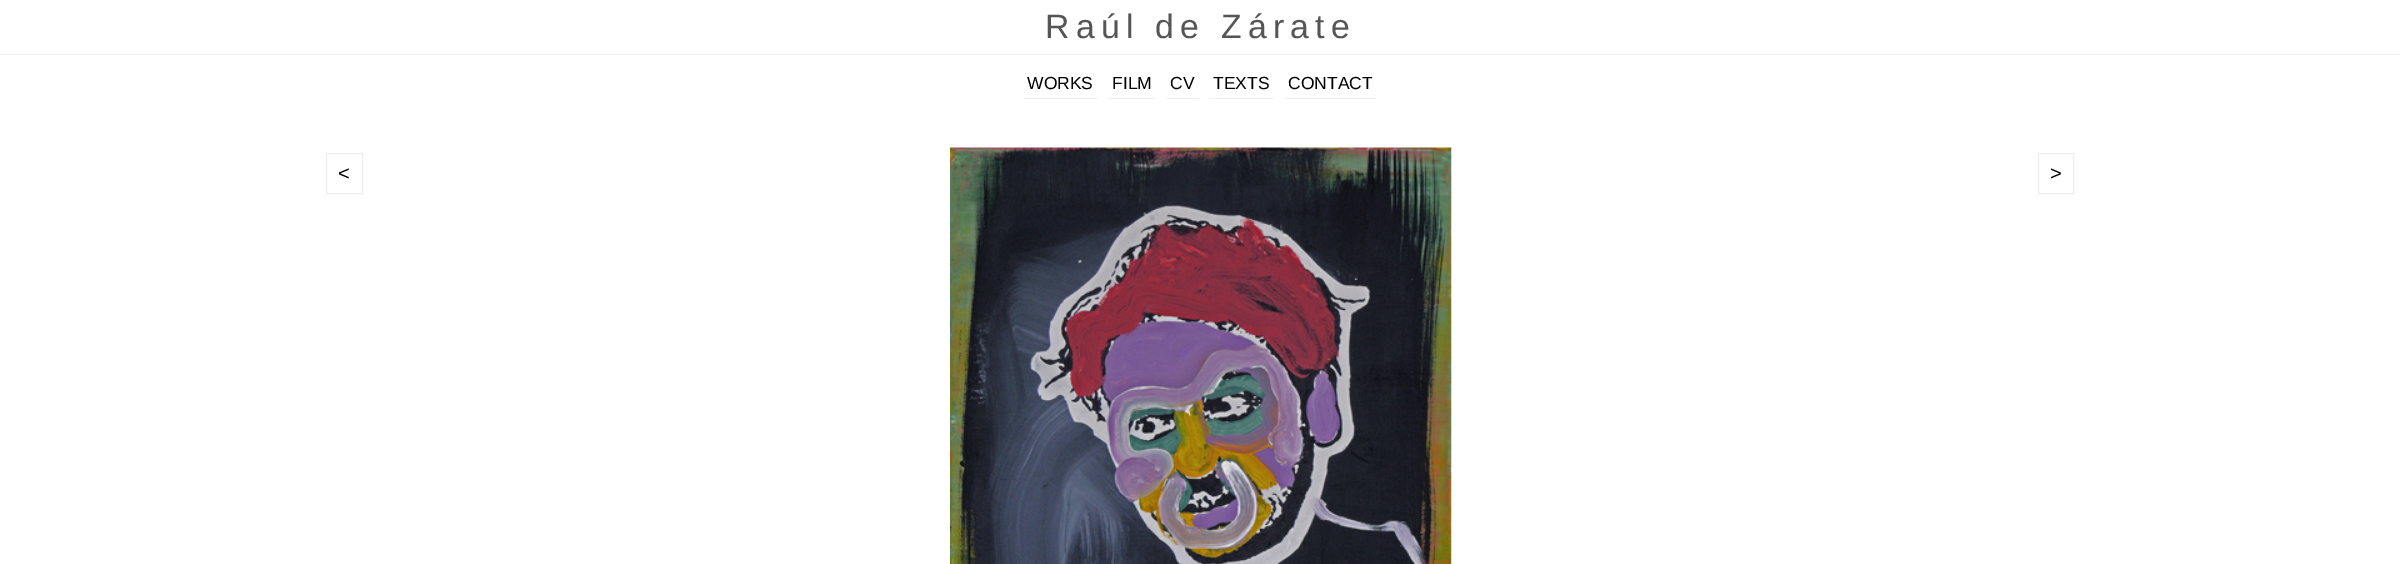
%!PS-Adobe-3.0
%%BoundingBox: 0 0 2400 564
%%LanguageLevel: 3
%%Pages: 1
%%EndComments
%%BeginProlog
/m { moveto } bind def
/fn { [ exch dup neg 0 0 3 -1 roll 0 0 ] selectfont } def
/tx { moveto show } def
/bx { rectfill } def
/im { 5 dict begin { /h /w /y /x /name } { exch def } forall
  gsave x y translate w h scale
  w h 8 [w 0 0 h 0 0] name (r) file false 3 colorimage grestore end } def
%%EndProlog
%%BeginSetup
<< /PageSize [2400 564] >> setpagedevice
%%EndSetup
%%Page: 1 1
0 564 translate 1 -1 scale
4 setmiterlimit
1 setgray
0 0 2400 564 bx
0.937 setgray
0 54 2400 1 bx
/LiberationSans-Regular 33.75 fn
0.333 setgray
1045 38 m 6.25 0 (Raúl de Zárate) ashow
/LiberationSans-Regular 17.5 fn
0 setgray
(WORKS) 1027 89 tx
0.937 setgray
1024 98 74 1 bx
0 setgray
(FILM) 1112 89 tx
0.937 setgray
1108 98 47 1 bx
0 setgray
(CV) 1170 89 tx
0.937 setgray
1166 98 33 1 bx
0 setgray
(TEXTS) 1213 89 tx
0.937 setgray
1210 98 64 1 bx
0 setgray
(CONTACT) 1288 89 tx
0.937 setgray
1285 98 91 1 bx
0.929 setgray
326.5 153.5 36 40 rectstroke
/LiberationSans-Regular 20 fn
0 setgray
(<) 338 180 tx
(image0.raw) 950 147 502 417 im
0.929 setgray
2038.5 153.5 35 40 rectstroke
0 setgray
(>) 2050 180 tx
showpage
%%EOF
